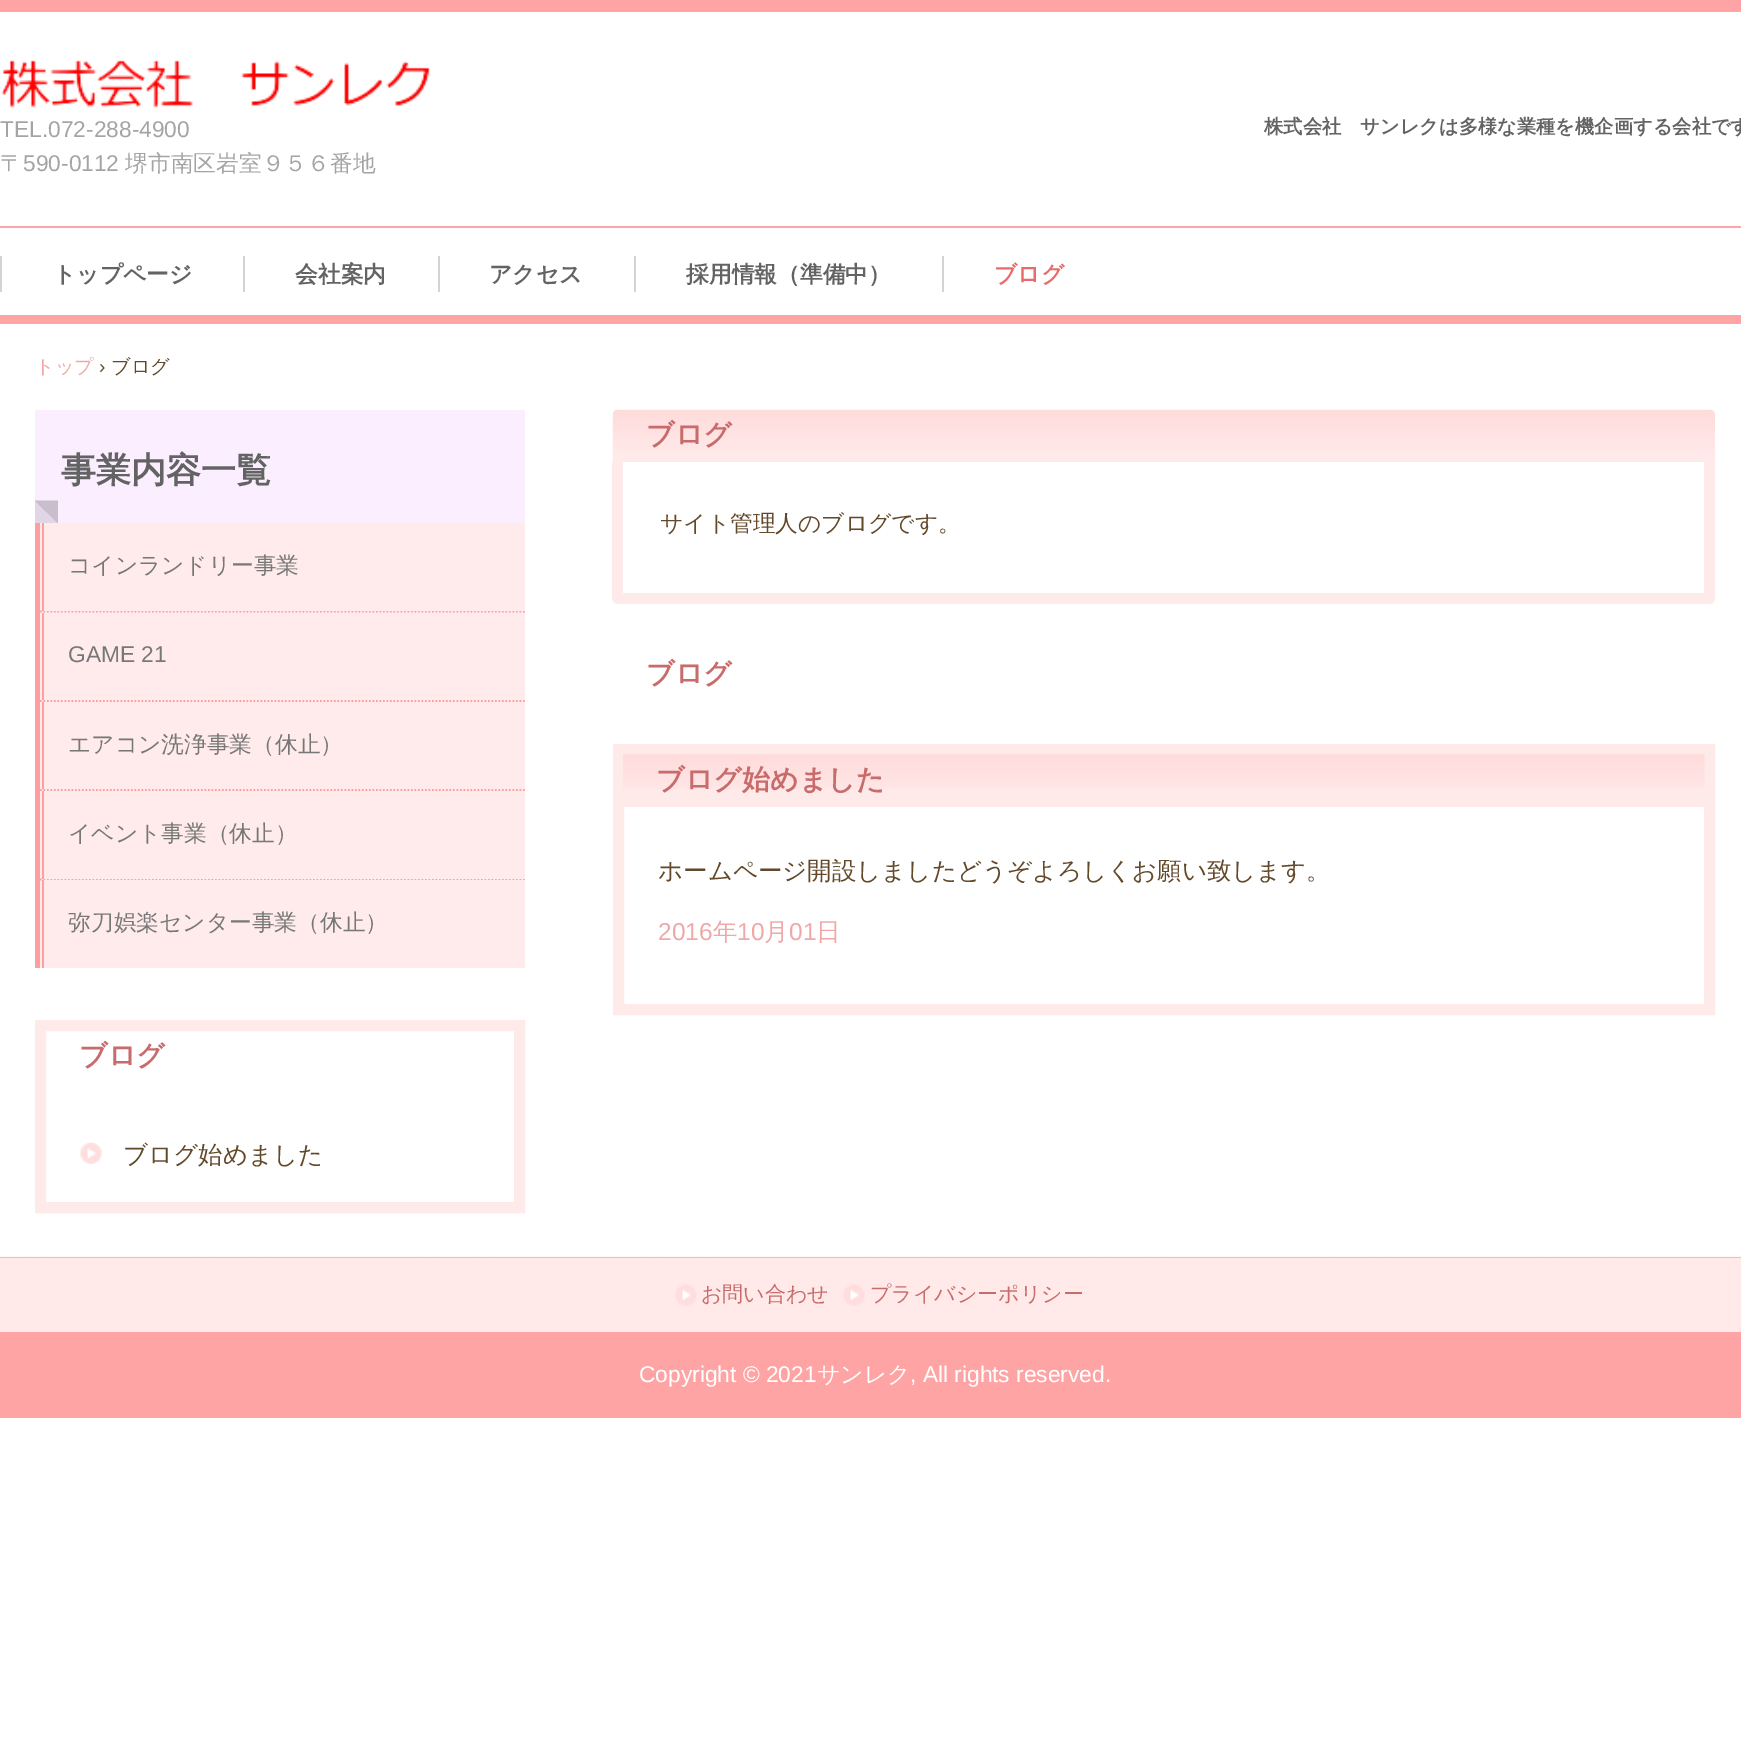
%!PS-Adobe-3.0
%%BoundingBox: 0 0 1741 1748
%%LanguageLevel: 3
%%Pages: 1
%%EndComments
%%BeginProlog
/m { moveto } bind def
/l { lineto } bind def
/c { curveto } bind def
/h { closepath } bind def
/f { fill } bind def
/S { stroke } bind def
/w { setlinewidth } bind def
/fn { [ exch dup neg 0 0 3 -1 roll 0 0 ] selectfont } def
/tx { moveto show } def
/bx { rectfill } def
/al { dup .setfillconstantalpha .setstrokeconstantalpha } def
/im { 5 dict begin { /h /w /y /x /name } { exch def } forall
  gsave x y translate w h scale
  w h 8 [w 0 0 h 0 0] name (r) file false 3 colorimage grestore end } def
%%EndProlog
%%BeginSetup
<< /PageSize [1741 1748] /PageUsesTransparency true >> setpagedevice
%%EndSetup
%%Page: 1 1
0 .pushpdf14devicefilter
0 1748 translate 1 -1 scale
4 setmiterlimit
1 setgray
0 0 1741 1748 bx
0.996 0.643 0.643 setrgbcolor
0 0 1741 12 bx
(image0.raw) 1 59 429 49 im
/LiberationSans-Regular 22.75 fn
0.643 setgray
(TEL.072-288-4900) 0 137 tx
/WenQuanYiZenHei-Medium 22.75 fn
(〒) 0 171 tx
/LiberationSans-Regular 22.75 fn
(590-0112) 23 171 tx
/WenQuanYiZenHei-Medium 22.75 fn
(堺市南区岩室９５６番地) 125 171 tx
/WenQuanYiZenHei-Bold 19.25 fn
0.388 setgray
(株式会社　サンレクは多様な業種を機企画する会社です) 1264 133 tx
0.996 0.643 0.643 setrgbcolor
0 226 1741 2 bx
0 315 1741 9 bx
0.827 setgray
0 256 2 36 bx
/WenQuanYiZenHei-Bold 22.75 fn
0.388 setgray
(トップページ) 53 282 tx
0.827 setgray
243 256 2 36 bx
0.388 setgray
(会社案内) 295 282 tx
0.827 setgray
438 256 2 36 bx
0.388 setgray
(アクセス) 489 282 tx
0.827 setgray
634 256 2 36 bx
0.388 setgray
(採用情報（準備中）) 686 282 tx
0.827 setgray
942 256 2 36 bx
0.922 0.416 0.416 setrgbcolor
(ブログ) 994 282 tx
/WenQuanYiZenHei-Medium 19.25 fn
0.941 0.655 0.655 setrgbcolor
(トップ) 35 373 tx
/LiberationSans-Regular 19.25 fn
0.384 0.286 0.165 setrgbcolor
(›) 99 373 tx
/WenQuanYiZenHei-Medium 19.25 fn
(ブログ) 111 373 tx
0.98 0.933 1 setrgbcolor
35 410 490 113 bx
/WenQuanYiZenHei-Bold 35 fn
0.388 setgray
(事業内容一覧) 61 482 tx
0.784 0.745 0.8 setrgbcolor
58 500.5 m 58 523 l 35 500.5 l h f
0.1 al
0 setgray
58 523 m 35 523 l 35 500.5 l h f
1 al
1 0.922 0.922 setrgbcolor
40 523 485 445 bx
1 0.62 0.62 setrgbcolor
35 523 5 445 bx
1.8 w
[1.75 1.75] 0 setdash
40 611.5 m 525 611.5 l S
1 0.922 0.922 setrgbcolor
44 610 481 1 bx
1 0.62 0.62 setrgbcolor
42 523 2 88 bx
/WenQuanYiZenHei-Medium 22.75 fn
0.467 setgray
(コインランドリー事業) 68 573 tx
1 0.62 0.62 setrgbcolor
40 701 m 525 701 l S
42 613 2 87 bx
/LiberationSans-Regular 22.75 fn
0.467 setgray
(GAME 21) 68 662 tx
1 0.62 0.62 setrgbcolor
40 790 m 525 790 l S
42 702 2 87 bx
/WenQuanYiZenHei-Medium 22.75 fn
0.467 setgray
(エアコン洗浄事業（休止）) 68 752 tx
1 0.62 0.62 setrgbcolor
40 879.5 m 525 879.5 l S
1 0.922 0.922 setrgbcolor
44 878 481 1 bx
1 0.62 0.62 setrgbcolor
42 791 2 88 bx
0.467 setgray
(イベント事業（休止）) 68 841 tx
1 0.922 0.922 setrgbcolor
44 880 481 1 bx
1 0.62 0.62 setrgbcolor
42 880 2 88 bx
0.467 setgray
(弥刀娯楽センター事業（休止）) 68 930 tx
1 0.918 0.918 setrgbcolor
11 w
[] 0 setdash
40.5 1025.5 479 182 rectstroke
/WenQuanYiZenHei-Bold 28 fn
0.78 0.42 0.42 setrgbcolor
(ブログ) 79 1065 tx
(image1.raw) 80 1142 22 22 im
/WenQuanYiZenHei-Medium 24.5 fn
0.384 0.286 0.165 setrgbcolor
(ブログ始めました) 123 1163 tx
(image2.raw) 612 409 1103 53 im
/WenQuanYiZenHei-Bold 28 fn
0.78 0.42 0.42 setrgbcolor
(ブログ) 646 444 tx
1 0.918 0.918 setrgbcolor
612 462 m 1715 462 l 1715 598 l 1715 601 1713 604 1710 604 c 618 604 l 615 604 612 601 612 598 c h 623 462 m 1704 462 l 1704 593 l 623 593 l h eofill
/WenQuanYiZenHei-Medium 22.75 fn
0.384 0.286 0.165 setrgbcolor
(サイト管理人のブログです。) 660 531 tx
/WenQuanYiZenHei-Bold 28 fn
0.78 0.42 0.42 setrgbcolor
(ブログ) 646 683 tx
1 0.918 0.918 setrgbcolor
618.5 749.5 1091 260 rectstroke
624 755 1080 52 bx
(image3.raw) 623 754 1082 35 im
0.78 0.42 0.42 setrgbcolor
(ブログ始めました) 656 789 tx
/WenQuanYiZenHei-Medium 24.5 fn
0.384 0.286 0.165 setrgbcolor
(ホームページ開設しましたどうぞよろしくお願い致します。) 658 879 tx
/LiberationSans-Regular 24.5 fn
0.941 0.655 0.655 setrgbcolor
(2016) 658 940 tx
/WenQuanYiZenHei-Medium 24.5 fn
(年) 713 940 tx
/LiberationSans-Regular 24.5 fn
(10) 737 940 tx
/WenQuanYiZenHei-Medium 24.5 fn
(月) 764 940 tx
/LiberationSans-Regular 24.5 fn
(01) 789 940 tx
/WenQuanYiZenHei-Medium 24.5 fn
(日) 816 940 tx
(image4.raw) 0 1256 1741 1 im
0.8 setgray
0 1257 1741 1 bx
1 0.918 0.914 setrgbcolor
0 1258 1741 74 bx
(image5.raw) 675 1284 22 22 im
/WenQuanYiZenHei-Medium 21 fn
0.78 0.42 0.42 setrgbcolor
(お問い合わせ) 701 1301 tx
(image5.raw) 843 1284 22 22 im
(プライバシーポリシー) 870 1301 tx
0.996 0.643 0.643 setrgbcolor
0 1332 1741 86 bx
/LiberationSans-Regular 22.75 fn
1 setgray
(Copyright © 2021) 639 1382 tx
/WenQuanYiZenHei-Medium 22.75 fn
(サンレク) 817 1382 tx
/LiberationSans-Regular 22.75 fn
(, All rights reserved.) 910 1382 tx
.poppdf14devicefilter showpage
%%EOF
